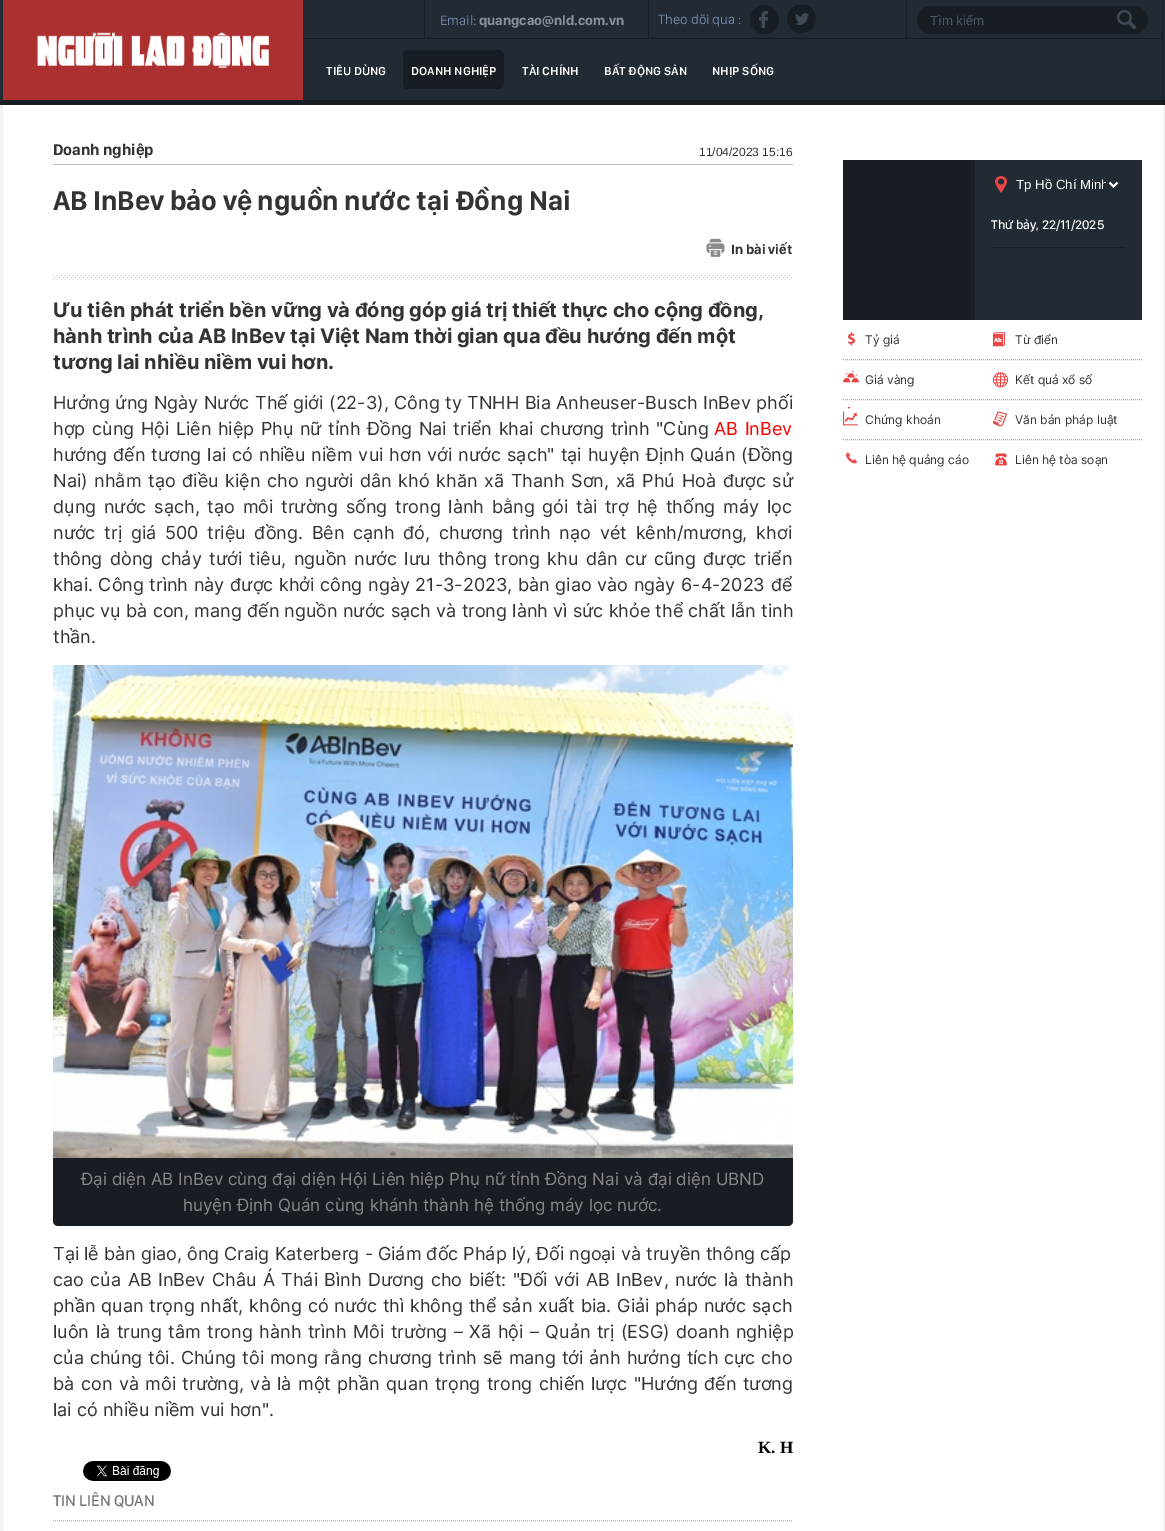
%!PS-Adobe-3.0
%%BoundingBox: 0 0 1165 1531
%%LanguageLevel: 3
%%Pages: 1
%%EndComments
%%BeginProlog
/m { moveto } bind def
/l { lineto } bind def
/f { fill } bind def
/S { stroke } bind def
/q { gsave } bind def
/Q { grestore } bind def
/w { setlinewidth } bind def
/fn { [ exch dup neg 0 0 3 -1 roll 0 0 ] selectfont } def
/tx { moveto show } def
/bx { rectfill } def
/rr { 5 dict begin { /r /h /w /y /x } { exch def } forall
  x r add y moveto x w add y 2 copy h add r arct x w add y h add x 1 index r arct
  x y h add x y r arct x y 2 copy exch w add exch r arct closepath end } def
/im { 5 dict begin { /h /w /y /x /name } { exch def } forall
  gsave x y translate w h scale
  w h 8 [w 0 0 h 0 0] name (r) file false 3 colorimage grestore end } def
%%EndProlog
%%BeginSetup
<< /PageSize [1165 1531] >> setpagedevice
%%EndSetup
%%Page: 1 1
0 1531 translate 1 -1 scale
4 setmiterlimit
0.949 setgray
0 0 1165 1531 bx
0.133 0.165 0.2 setrgbcolor
0 0 1165 100 bx
0.09 0.114 0.137 setrgbcolor
0 100 1165 5 bx
(image0.raw) 3 0 300 100 im
1162 0 1 100 bx
303 38 859 1 bx
424 0 1 39 bx
648 0 1 39 bx
/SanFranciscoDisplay-Regular 14 fn
0.451 0.541 0.651 setrgbcolor
(Email:) 440 25 tx
/SanFranciscoDisplay-Bold 14 fn
0.533 0.576 0.627 setrgbcolor
(quangcao@nld.com.vn) 479 25 tx
0.09 0.114 0.137 setrgbcolor
906 0 1 39 bx
/SanFranciscoDisplay-Regular 14 fn
0.451 0.541 0.651 setrgbcolor
(Theo dõi qua :) 658 24 tx
(image1.raw) 750 5 29 29 im
(image2.raw) 787 5 29 28 im
0.09 0.114 0.137 setrgbcolor
917 6 231 28 14 rr f
/LiberationSans-Regular 13.25 fn
0.294 0.337 0.384 setrgbcolor
(Tìm kiếm) 930 25 tx
(image3.raw) 1117 10 19 19 im
/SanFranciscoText-SemiBold 12 fn
1 setgray
(TIÊU DÙNG) 326 75 tx
0.09 0.114 0.137 setrgbcolor
403 50 101 39 5 rr f
1 setgray
(DOANH NGHIỆP) 411 75 tx
(TÀI CHÍNH) 522 75 tx
(BẤT ĐỘNG SẢN) 604 75 tx
(NHỊP SỐNG) 712 75 tx
3 105 1160 1426 bx
0.729 setgray
53 164 740 1 bx
/SanFranciscoDisplay-Bold 16 fn
0.2 setgray
(Doanh nghiệp) 53 155 tx
/LiberationSans-Regular 12 fn
(11/04/2023 15:16) 699 156 tx
/SanFranciscoDisplay-Bold 28 fn
(AB InBev bảo vệ nguồn nước tại Đồng Nai) 53 210 tx
(image4.raw) 706 238 19 19 im
/SanFranciscoDisplay-Bold 14 fn
(In bài viết) 731 254 tx
(image5.raw) 53 275 739 5 im
/Inter-Bold 20 fn
(Ưu tiên phát triển bền vững và đóng góp giá trị thiết thực cho cộng đồng,) 53 317 tx
(hành trình của AB InBev tại Việt Nam thời gian qua đều hướng đến một) 53 343 tx
(tương lai nhiều niềm vui hơn.) 53 369 tx
/Inter-Regular 18 fn
53 409 m 0.5 0 32 (Hưởng ứng Ngày Nước Thế giới \(22-3\), Công ty TNHH Bia Anheuser-Busch InBev phối) widthshow
53 435 m 1.6 0 32 (hợp cùng Hội Liên hiệp Phụ nữ tỉnh Đồng Nai triển khai chương trình "Cùng) widthshow
1 0 0 setrgbcolor
714 435 m 1.6 0 32 (AB InBev) widthshow
0.2 setgray
53 461 m 1 0 32 (hướng đến tương lai có nhiều niềm vui hơn với nước sạch" tại huyện Định Quán \(Đồng) widthshow
53 487 m 1.7 0 32 (Nai\) nhằm tạo điều kiện cho người dân khó khăn xã Thanh Sơn, xã Phú Hoà được sử) widthshow
53 513 m 2.75 0 32 (dụng nước sạch, tạo môi trường sống trong lành bằng gói tài trợ hệ thống máy lọc) widthshow
53 539 m 3.75 0 32 (nước trị giá 500 triệu đồng. Bên cạnh đó, chương trình nạo vét kênh/mương, khơi) widthshow
53 565 m 2.4 0 32 (thông dòng chảy tưới tiêu, nguồn nước lưu thông trong khu dân cư cũng được triển) widthshow
53 591 m 0.6 0 32 (khai. Công trình này được khởi công ngày 21-3-2023, bàn giao vào ngày 6-4-2023 để) widthshow
53 617 m 0.2 0 32 (phục vụ bà con, mang đến nguồn nước sạch và trong lành vì sức khỏe thể chất lẫn tinh) widthshow
(thần.) 53 643 tx
0.09 0.114 0.137 setrgbcolor
53 665 740 561 5 rr f
(image6.raw) 53 665 740 493 im
/Inter-Regular 17 fn
0.533 setgray
(Đại diện AB InBev cùng đại diện Hội Liên hiệp Phụ nữ tỉnh Đồng Nai và đại diện UBND) 81 1185 tx
(huyện Định Quán cùng khánh thành hệ thống máy lọc nước.) 183 1211 tx
/Inter-Regular 18 fn
0.2 setgray
(Tại lễ bàn giao, ông Craig Katerberg - Giám đốc Pháp lý, Đối ngoại và truyền thông cấp) 53 1260 tx
53 1286 m 1.4 0 32 (cao của AB InBev Châu Á Thái Bình Dương cho biết: "Đối với AB InBev, nước là thành) widthshow
53 1312 m 0.8 0 32 (phần quan trọng nhất, không có nước thì không thể sản xuất bia. Giải pháp nước sạch) widthshow
53 1338 m 1.5 0 32 (luôn là trung tâm trong hành trình Môi trường – Xã hội – Quản trị \(ESG\) doanh nghiệp) widthshow
53 1364 m 0.9 0 32 (của chúng tôi. Chúng tôi mong rằng chương trình sẽ mang tới ảnh hưởng tích cực cho) widthshow
53 1390 m 1.4 0 32 (bà con và môi trường, và là một phần quan trọng trong chiến lược "Hướng đến tương) widthshow
(lai có nhiều niềm vui hơn".) 53 1416 tx
/LiberationSerif-Bold 17 fn
0 setgray
(K. H) 758 1453 tx
(image7.raw) 83 1461 88 20 im
0.698 setgray
[1 1] 0 setdash
53 1520.5 m 793 1520.5 l S
/SanFranciscoDisplay-Medium 16 fn
0.467 setgray
(TIN LIÊN QUAN) 53 1506 tx
0.09 0.114 0.137 setrgbcolor
843 160 132 160 bx
0.133 0.165 0.2 setrgbcolor
975 160 167 160 bx
0.09 0.114 0.137 setrgbcolor
991 247 135 1 bx
(image8.raw) 995 176 12 17 im
1 setgray
2 w
[] 0 setdash
1109.5 182.5 m 1113.5 186.5 l 1117.5 182.5 l S
q
1016 176 90 17 rectclip
/LiberationSans-Regular 13.25 fn
(Tp Hồ Chí Minh) 1016 189 tx
Q
/SanFranciscoDisplay-Medium 13 fn
(Thứ bảy, 22/11/2025) 991 229 tx
0.663 setgray
1 w
[1 1] 0 setdash
843 359.5 m 1143 359.5 l S
(image9.raw) 848 332 7 14 im
/Inter-Regular 12 fn
0.2 setgray
(Tỷ giá) 865 344 tx
(image10.raw) 993 332 12 15 im
(Từ điển) 1015 344 tx
0.663 setgray
843 399.5 m 1143 399.5 l S
(image11.raw) 843 370 16 13 im
0.2 setgray
(Giá vàng) 865 384 tx
(image12.raw) 993 372 15 16 im
(Kết quả xổ số) 1015 384 tx
0.663 setgray
843 439.5 m 1143 439.5 l S
(image13.raw) 843 407 15 19 im
0.2 setgray
(Chứng khoán) 865 424 tx
(image14.raw) 993 411 14 16 im
(Văn bản pháp luật) 1015 424 tx
(image15.raw) 846 452 11 12 im
(Liên hệ quảng cáo) 865 464 tx
(image16.raw) 995 453 12 13 im
(Liên hệ tòa soạn) 1015 464 tx
showpage
%%EOF
